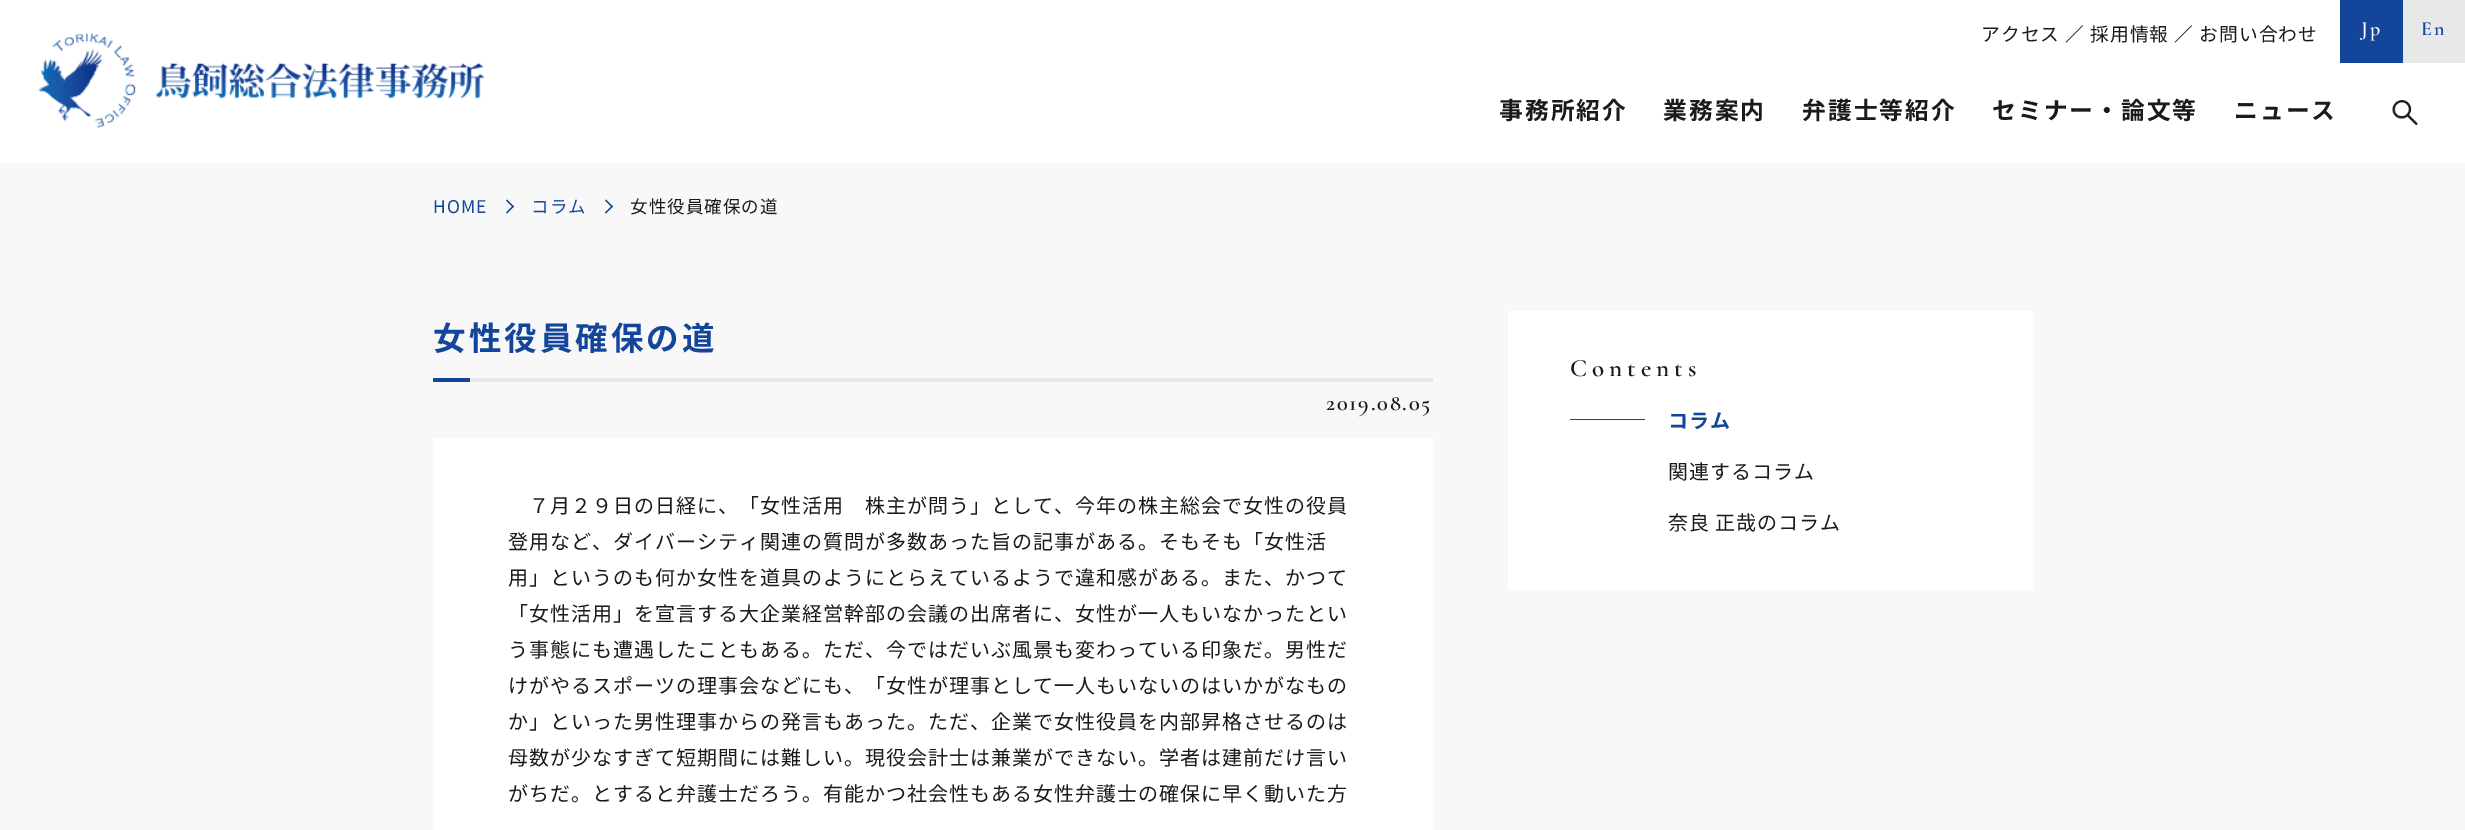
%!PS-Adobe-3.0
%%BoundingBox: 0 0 2465 830
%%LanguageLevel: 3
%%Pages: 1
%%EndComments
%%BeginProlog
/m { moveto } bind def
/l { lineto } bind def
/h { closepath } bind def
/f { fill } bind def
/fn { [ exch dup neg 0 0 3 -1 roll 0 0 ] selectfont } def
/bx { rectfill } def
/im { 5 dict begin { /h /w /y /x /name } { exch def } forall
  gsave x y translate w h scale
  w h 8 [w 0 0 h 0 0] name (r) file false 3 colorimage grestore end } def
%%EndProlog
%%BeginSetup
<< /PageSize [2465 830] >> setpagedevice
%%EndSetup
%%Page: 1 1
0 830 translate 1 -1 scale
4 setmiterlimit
0.973 setgray
0 0 2465 830 bx
1 setgray
0 0 2465 163 bx
(image0.raw) 38 33 446 95 im
/NotoSansJP-Regular 18.75 fn
0.102 setgray
1981 41 m 1 0 (アクセス ／ 採用情報 ／ お問い合わせ) ashow
0.075 0.275 0.604 setrgbcolor
2340 0 63 63 bx
/CormorantGaramond-SemiBold 20 fn
1 setgray
2361 35 m 2 0 (Jp) ashow
0.906 0.914 0.914 setrgbcolor
2403 0 62 63 bx
0.075 0.275 0.604 setrgbcolor
2421 35 m 2 0 (En) ashow
/NotoSansJP-Bold 23.75 fn
0.102 setgray
1499 119 m 2 0 (事務所紹介) ashow
1663 119 m 2 0 (業務案内) ashow
1802 119 m 2 0 (弁護士等紹介) ashow
1992 119 m 2 0 (セミナー・論文等) ashow
2234 119 m 2 0 (ニュース) ashow
(image1.raw) 2392 100 26 25 im
/NotoSansJP-Regular 17.5 fn
0.075 0.275 0.604 setrgbcolor
433 213 m 1 0 (HOME) ashow
507 199.5 m 514 206.5 l 513 207.5 l 506 200.5 l h f
513 205.5 m 514 206.5 l 507 213.5 l 506 212.5 l h f
531 213 m 1 0 (コラム) ashow
606 199.5 m 613 206.5 l 612 207.5 l 605 200.5 l h f
612 205.5 m 613 206.5 l 606 213.5 l 605 212.5 l h f
0.102 setgray
630 213 m 1 0 (女性役員確保の道) ashow
0.906 0.914 0.914 setrgbcolor
470 378 963 4 bx
/NotoSansJP-Bold 32.5 fn
0.075 0.275 0.604 setrgbcolor
433 350 m 3 0 (女性役員確保の道) ashow
433 378 37 4 bx
/CormorantGaramond-SemiBold 22.5 fn
0.102 setgray
1326 410 m 1.75 0 (2019.08.05) ashow
1 setgray
433 438 1000 392 bx
/NotoSansJP-Regular 20 fn
0.102 setgray
529 513 m 1 0 (７月２９日の日経に、「女性活用　株主が問う」として、今年の株主総会で女性の役員) ashow
508 549 m 1 0 (登用など、ダイバーシティ関連の質問が多数あった旨の記事がある。そもそも「女性活) ashow
508 585 m 1 0 (用」というのも何か女性を道具のようにとらえているようで違和感がある。また、かつて) ashow
508 621 m 1 0 (「女性活用」を宣言する大企業経営幹部の会議の出席者に、女性が一人もいなかったとい) ashow
508 657 m 1 0 (う事態にも遭遇したこともある。ただ、今ではだいぶ風景も変わっている印象だ。男性だ) ashow
508 693 m 1 0 (けがやるスポーツの理事会などにも、「女性が理事として一人もいないのはいかがなもの) ashow
508 729 m 1 0 (か」といった男性理事からの発言もあった。ただ、企業で女性役員を内部昇格させるのは) ashow
508 765 m 1 0 (母数が少なすぎて短期間には難しい。現役会計士は兼業ができない。学者は建前だけ言い) ashow
508 801 m 1 0 (がちだ。とすると弁護士だろう。有能かつ社会性もある女性弁護士の確保に早く動いた方) ashow
1 setgray
1508 311 525 279 bx
/CormorantGaramond-SemiBold 25 fn
0.102 setgray
1570 376 m 5 0 (Contents) ashow
0.075 0.275 0.604 setrgbcolor
1570 419 75 1 bx
/NotoSansJP-Bold 20 fn
1668 428 m 1 0 (コラム) ashow
/NotoSansJP-Regular 20 fn
0.102 setgray
1668 479 m 1 0 (関連するコラム) ashow
1668 530 m 1 0 (奈良 正哉のコラム) ashow
showpage
%%EOF
